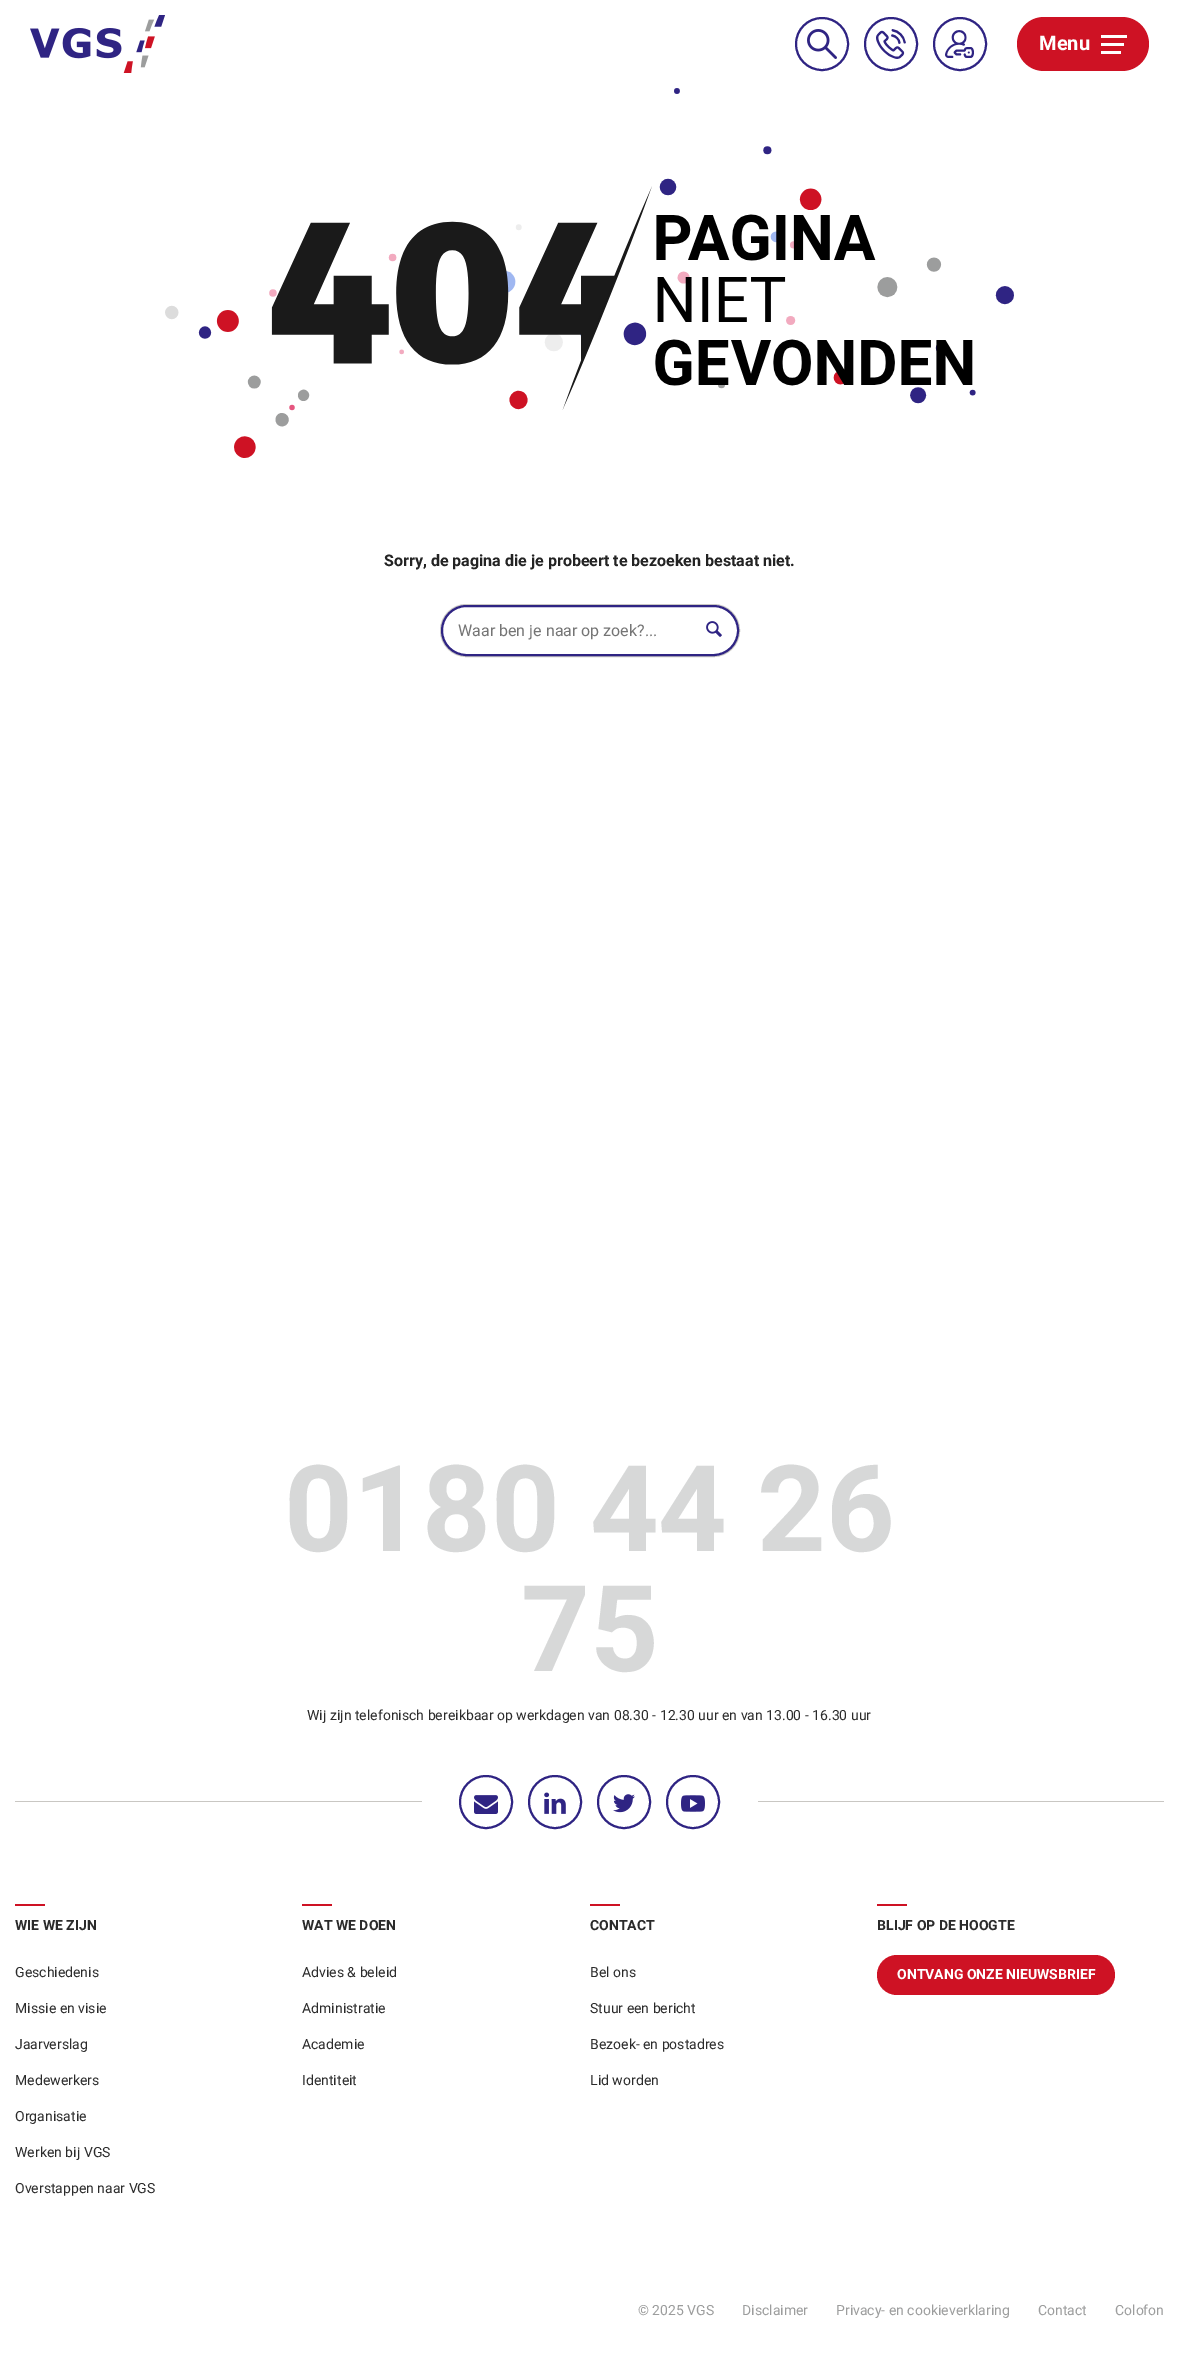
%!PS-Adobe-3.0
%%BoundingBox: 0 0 1179 2355
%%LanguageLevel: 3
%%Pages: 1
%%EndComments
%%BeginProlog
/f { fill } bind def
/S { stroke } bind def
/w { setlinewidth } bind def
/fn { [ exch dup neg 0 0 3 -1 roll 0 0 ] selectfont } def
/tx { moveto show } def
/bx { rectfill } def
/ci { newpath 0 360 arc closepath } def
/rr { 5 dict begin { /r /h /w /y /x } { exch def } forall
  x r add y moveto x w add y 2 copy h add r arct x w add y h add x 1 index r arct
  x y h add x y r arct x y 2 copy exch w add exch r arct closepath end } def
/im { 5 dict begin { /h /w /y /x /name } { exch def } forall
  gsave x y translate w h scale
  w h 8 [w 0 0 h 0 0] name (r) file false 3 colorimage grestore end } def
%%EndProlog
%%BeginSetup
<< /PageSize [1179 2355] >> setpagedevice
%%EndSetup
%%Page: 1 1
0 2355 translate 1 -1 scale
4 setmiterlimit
1 setgray
0 0 1179 2355 bx
(image0.raw) 30 15 135 58 im
0.184 0.141 0.514 setrgbcolor
2 w
822 44 26 ci S
(image1.raw) 807 29 30 30 im
891 44 26 ci S
(image2.raw) 876 29 30 30 im
960 44 26 ci S
(image3.raw) 945 30 29 28 im
0.808 0.071 0.141 setrgbcolor
1017 17 132 54 27 rr f
/Heebo-Bold 20 fn
1 setgray
(Menu) 1039 50 tx
1101 35 26 3 bx
1101 43 23 3 bx
1101 51 20 3 bx
(image4.raw) 165 88 849 370 im
/Heebo-Bold 16 fn
0.137 setgray
(Sorry, de pagina die je probeert te bezoeken bestaat niet.) 384 566 tx
0.788 0.78 0.765 setrgbcolor
1 w
440.5 604.5 299 52 26 rr S
0.184 0.141 0.514 setrgbcolor
2 w
442 606 296 49 24.5 rr S
/Heebo-Regular 16 fn
0.459 setgray
(Waar ben je naar op zoek?...) 458 636 tx
(image5.raw) 706 621 16 16 im
/Heebo-Bold 120 fn
0.843 0.847 0.847 setrgbcolor
(0180 44 26) 284 1551 tx
(75) 521 1671 tx
/Heebo-Regular 14 fn
0.169 setgray
(Wij zijn telefonisch bereikbaar op werkdagen van 08.30 - 12.30 uur en van 13.00 - 16.30 uur) 307 1720 tx
0.788 0.78 0.765 setrgbcolor
15 1801 1149 1 bx
1 setgray
422 1801 336 1 bx
0.184 0.141 0.514 setrgbcolor
486 1802 26 ci S
(image6.raw) 474 1795 24 19 im
555 1802 26 ci S
(image7.raw) 544 1792 22 22 im
624 1802 26 ci S
(image8.raw) 613 1794 22 19 im
693 1802 26 ci S
(image9.raw) 681 1795 24 17 im
0.808 0.071 0.141 setrgbcolor
15 1904 30 2 bx
/Heebo-Bold 14 fn
0.169 setgray
(WIE WE ZIJN) 15 1930 tx
/Heebo-Regular 14 fn
(Geschiedenis) 15 1977 tx
(Missie en visie) 15 2013 tx
(Jaarverslag) 15 2049 tx
(Medewerkers) 15 2085 tx
(Organisatie) 15 2121 tx
(Werken bij VGS) 15 2157 tx
(Overstappen naar VGS) 15 2193 tx
0.808 0.071 0.141 setrgbcolor
302 1904 30 2 bx
/Heebo-Bold 14 fn
0.169 setgray
(WAT WE DOEN) 302 1930 tx
/Heebo-Regular 14 fn
(Advies & beleid) 302 1977 tx
(Administratie) 302 2013 tx
(Academie) 302 2049 tx
(Identiteit) 302 2085 tx
0.808 0.071 0.141 setrgbcolor
590 1904 30 2 bx
/Heebo-Bold 14 fn
0.169 setgray
(CONTACT) 590 1930 tx
/Heebo-Regular 14 fn
(Bel ons) 590 1977 tx
(Stuur een bericht) 590 2013 tx
(Bezoek- en postadres) 590 2049 tx
(Lid worden) 590 2085 tx
0.808 0.071 0.141 setrgbcolor
877 1904 30 2 bx
/Heebo-Bold 14 fn
0.169 setgray
(BLIJF OP DE HOOGTE) 877 1930 tx
0.808 0.071 0.141 setrgbcolor
877 1955 238 40 20 rr f
1 setgray
(ONTVANG ONZE NIEUWSBRIEF) 897 1979 tx
/Heebo-Regular 14 fn
0.612 0.616 0.616 setrgbcolor
(© 2025 VGS) 638 2315 tx
(Disclaimer) 742 2315 tx
(Privacy- en cookieverklaring) 836 2315 tx
(Contact) 1038 2315 tx
(Colofon) 1115 2315 tx
showpage
%%EOF
